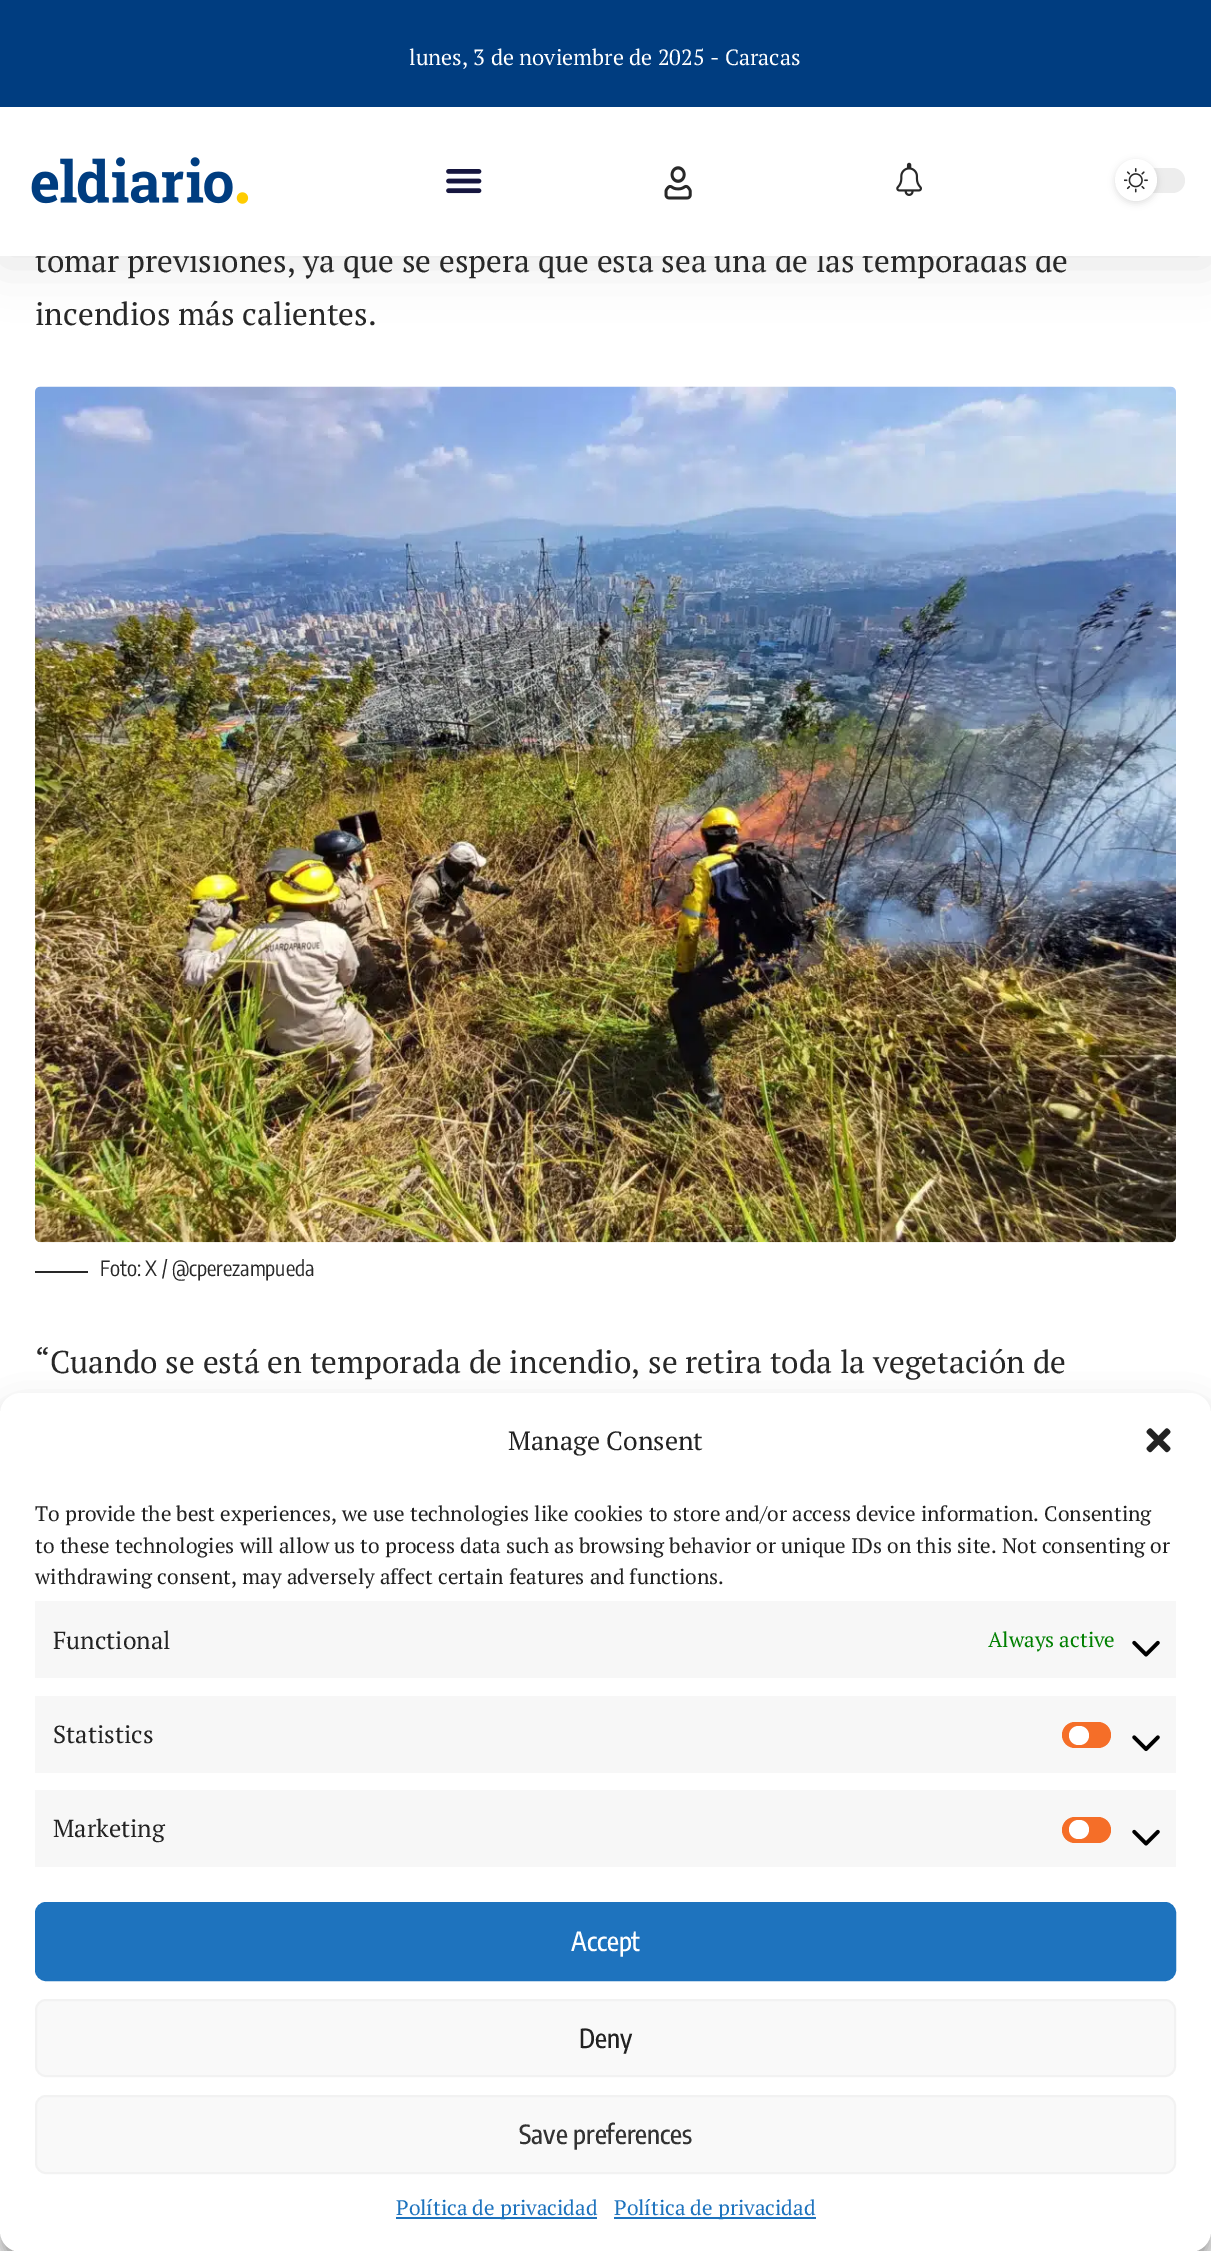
%!PS-Adobe-3.0
%%BoundingBox: 0 0 1211 2251
%%LanguageLevel: 3
%%Pages: 1
%%EndComments
%%BeginProlog
/f { fill } bind def
/S { stroke } bind def
/q { gsave } bind def
/Q { grestore } bind def
/w { setlinewidth } bind def
/fn { [ exch dup neg 0 0 3 -1 roll 0 0 ] selectfont } def
/tx { moveto show } def
/bx { rectfill } def
/al { dup .setfillconstantalpha .setstrokeconstantalpha } def
/ci { newpath 0 360 arc closepath } def
/rr { 5 dict begin { /r /h /w /y /x } { exch def } forall
  x r add y moveto x w add y 2 copy h add r arct x w add y h add x 1 index r arct
  x y h add x y r arct x y 2 copy exch w add exch r arct closepath end } def
/sh { 12 dict begin { /a /b /q /h /w /y /x } { exch def } forall gsave /was 0 def
  9 -2 -9 { dup b mul 4 div /e exch def 1 sub .425 mul 2.718 exch exp 1 add a .99 .min exch div /now exch def
    1 1 now sub 1 was sub div sub al /was now def
    w h .min e 2 mul add 0 gt { x e sub y e sub w e 2 mul add h e 2 mul add
      q e add b .6 mul add w h .min 2 div e add .min 0 .max rr fill } if } for grestore end } def
/im { 5 dict begin { /h /w /y /x /name } { exch def } forall
  gsave x y translate w h scale
  w h 8 [w 0 0 h 0 0] name (r) file false 3 colorimage grestore end } def
%%EndProlog
%%BeginSetup
<< /PageSize [1211 2251] /PageUsesTransparency true >> setpagedevice
%%EndSetup
%%Page: 1 1
0 .pushpdf14devicefilter
0 2251 translate 1 -1 scale
4 setmiterlimit
1 setgray
0 0 1211 2251 bx
0 setgray
0 9 1211 255 0 26 0.1 sh
0 0.239 0.502 setrgbcolor
0 0 1211 107 bx
/PTSerif-Regular 22 fn
1 setgray
(lunes, 3 de noviembre de 2025 - Caracas) 409 65 tx
/PTSerif-Regular 31.5 fn
0.157 setgray
(tomar previsiones, ya que se espera que esta sea una de las temporadas de) 35 272 tx
1 setgray
0 107 1211 149 bx
(image0.raw) 31 157 218 47 im
(image1.raw) 446 169 36 25 im
(image2.raw) 664 166 28 34 im
(image3.raw) 896 162 26 34 im
0.929 setgray
1115 168 70 25 12.5 rr f
0 setgray
1115 161 42 42 21 3.5 0.12 sh
1 setgray
1136 180 21 ci f
(image4.raw) 1124 168 24 25 im
0.157 setgray
(incendios más calientes.) 35 325 tx
(image5.raw) 35 386 1141 857 im
35 1271 53 2 bx
/EncodeSansCondensed-Regular 21 fn
(Foto: X / @cperezampueda) 100 1276 tx
/PTSerif-Regular 31.5 fn
(“Cuando se está en temporada de incendio, se retira toda la vegetación de) 35 1373 tx
0 setgray
0 1404 1211 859 21 5 0.23 sh
0 1411 1211 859 21 17.5 0.19 sh
0.502 setgray
1089 2123 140 105 4 4.5 1 sh
1 setgray
0 1393 1211 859 21 rr f
/PTSerif-Regular 26.25 fn
0.133 setgray
(Manage Consent) 508 1450 tx
(image6.raw) 1146 1428 25 25 im
/PTSerif-Regular 21 fn
(To provide the best experiences, we use technologies like cookies to store and/or access device information. Consenting) 35 1521 tx
(to these technologies will allow us to process data such as browsing behavior or unique IDs on this site. Not consenting or) 35 1553 tx
(withdrawing consent, may adversely affect certain features and functions.) 35 1584 tx
0.969 setgray
35 1601 1141 77 bx
/PTSerif-Regular 24.5 fn
0.133 setgray
(Functional) 53 1649 tx
/PTSerif-Regular 21 fn
0 0.502 0 setrgbcolor
(Always active) 988 1647 tx
(image7.raw) 1132 1640 28 17 im
0.969 setgray
35 1696 1141 77 bx
/PTSerif-Regular 24.5 fn
0.133 setgray
(Statistics) 53 1743 tx
0.961 0.431 0.157 setrgbcolor
1062 1722 49 26 13 rr f
1 setgray
1069 1726 20 19 9.5 rr f
(image8.raw) 1132 1735 28 17 im
0.969 setgray
35 1790 1141 77 bx
0.133 setgray
(Marketing) 53 1837 tx
0.961 0.431 0.157 setrgbcolor
1062 1817 49 26 13 rr f
1 setgray
1069 1820 20 19 9.5 rr f
(image7.raw) 1132 1829 28 17 im
0.118 0.451 0.745 setrgbcolor
36 1903 1139 77 10 rr q f Q
2 w
S
/EncodeSansCondensed-Medium 26.25 fn
1 setgray
(Accept) 571 1951 tx
0.976 setgray
36 2000 1139 76 10 rr q f Q
0.949 setgray
S
0.133 setgray
(Deny) 579 2048 tx
0.976 setgray
36 2096 1139 77 10 rr q f Q
0.949 setgray
S
0.2 setgray
(Save preferences) 519 2144 tx
0.118 0.451 0.745 setrgbcolor
396 2217 201 2 bx
/PTSerif-Regular 21 fn
(Política de privacidad) 396 2215 tx
614 2217 202 2 bx
(Política de privacidad) 614 2215 tx
.poppdf14devicefilter showpage
%%EOF
